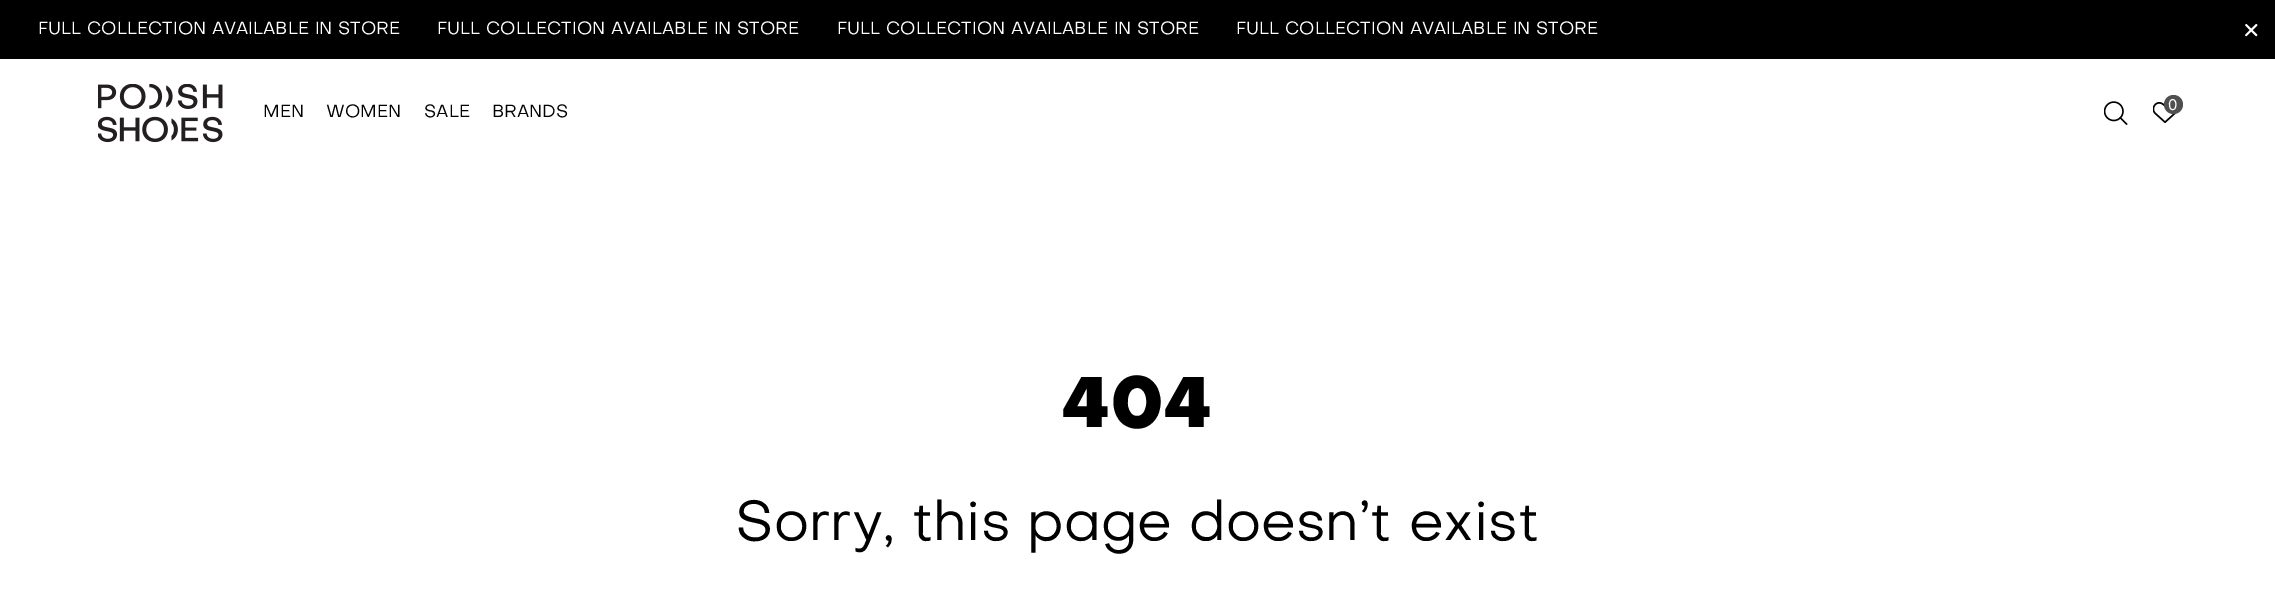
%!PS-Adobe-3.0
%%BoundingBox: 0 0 2275 607
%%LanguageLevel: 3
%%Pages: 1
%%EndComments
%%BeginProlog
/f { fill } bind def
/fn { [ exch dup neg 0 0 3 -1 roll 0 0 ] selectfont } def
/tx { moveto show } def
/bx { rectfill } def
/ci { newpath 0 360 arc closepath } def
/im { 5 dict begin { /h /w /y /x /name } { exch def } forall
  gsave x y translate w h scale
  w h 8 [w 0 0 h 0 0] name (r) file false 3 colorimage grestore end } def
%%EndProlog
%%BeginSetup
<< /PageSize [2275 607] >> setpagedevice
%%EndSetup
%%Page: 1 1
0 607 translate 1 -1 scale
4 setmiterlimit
1 setgray
0 0 2275 607 bx
0 setgray
0 0 2275 59 bx
/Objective-Regular 17.5 fn
1 setgray
(FULL COLLECTION AVAILABLE IN STORE) 38 34 tx
(FULL COLLECTION AVAILABLE IN STORE) 437 34 tx
(FULL COLLECTION AVAILABLE IN STORE) 837 34 tx
(FULL COLLECTION AVAILABLE IN STORE) 1236 34 tx
(image0.raw) 2245 23 13 14 im
(image1.raw) 98 84 125 59 im
0 setgray
(MEN) 263 117 tx
(WOMEN) 326 117 tx
(SALE) 424 117 tx
(BRANDS) 492 117 tx
(image2.raw) 2104 101 24 24 im
(image3.raw) 2153 102 24 21 im
0.314 setgray
2173.5 104.5 9.5 ci f
/Inter-Regular 15 fn
1 setgray
(0) 2168 110 tx
/Objective-ExtraBold 70 fn
0 setgray
(404) 1062 427 tx
/Objective-Regular 55 fn
(Sorry, this page doesn’t exist) 735 540 tx
showpage
%%EOF
